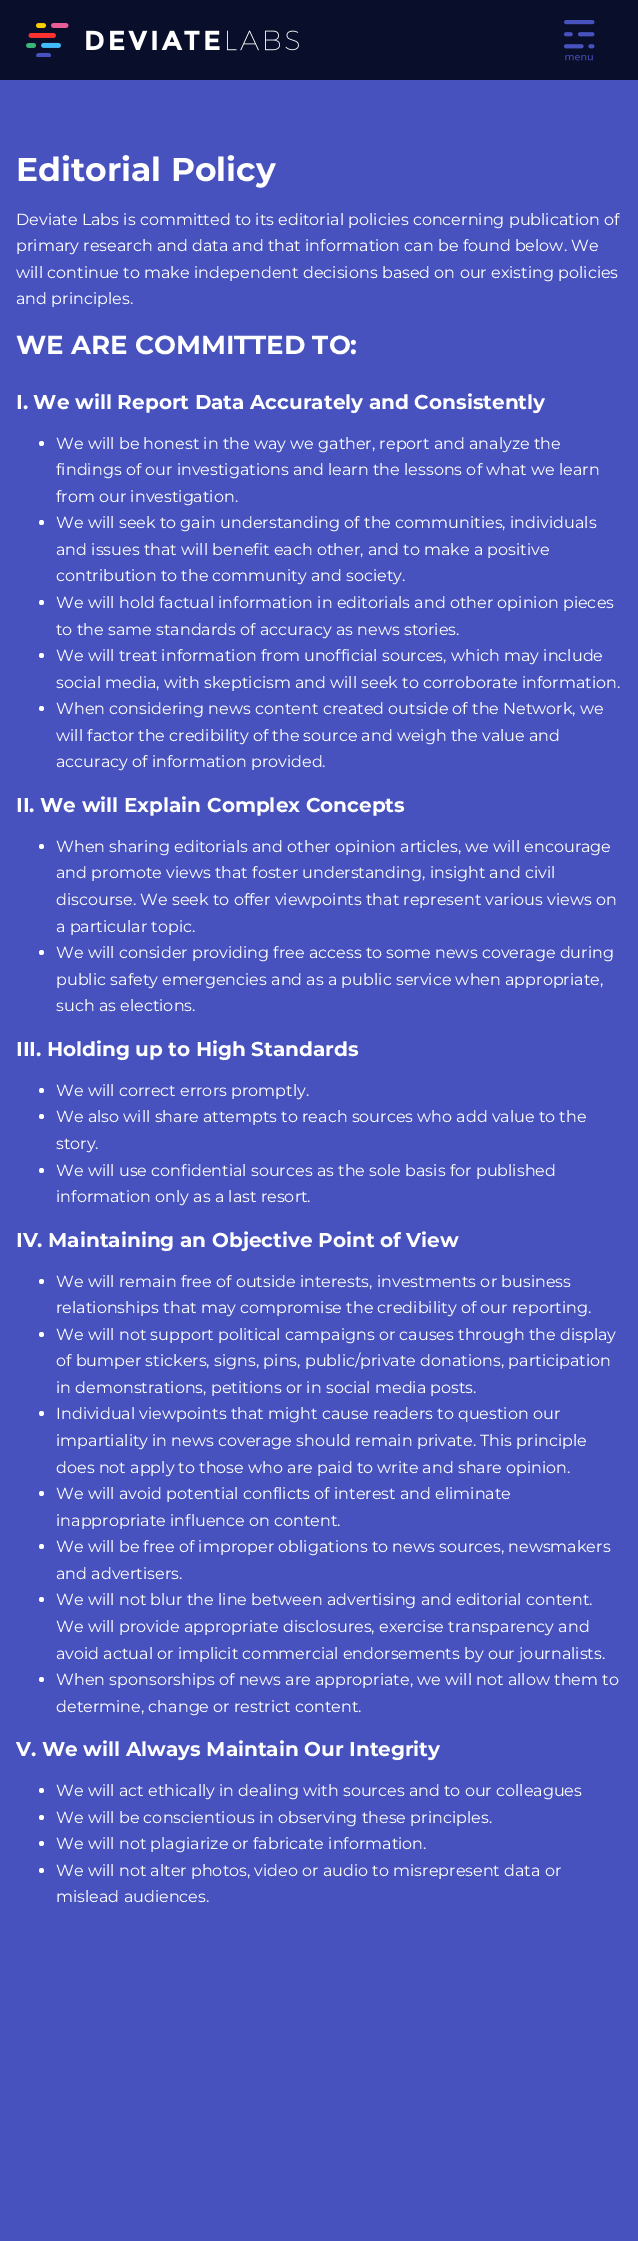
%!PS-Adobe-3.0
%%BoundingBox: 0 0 638 2241
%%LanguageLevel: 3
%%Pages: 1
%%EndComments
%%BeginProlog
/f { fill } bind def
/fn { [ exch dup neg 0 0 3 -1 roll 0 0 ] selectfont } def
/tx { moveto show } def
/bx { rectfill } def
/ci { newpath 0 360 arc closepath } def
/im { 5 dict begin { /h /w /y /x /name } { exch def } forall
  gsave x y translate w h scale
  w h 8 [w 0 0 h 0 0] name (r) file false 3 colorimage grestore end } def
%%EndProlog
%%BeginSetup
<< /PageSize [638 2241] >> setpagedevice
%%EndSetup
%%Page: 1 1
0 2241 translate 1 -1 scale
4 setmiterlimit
0.035 0.055 0.169 setrgbcolor
0 0 638 2241 bx
(image0.raw) 26 23 273 34 im
(image1.raw) 563 20 32 41 im
0.278 0.322 0.745 setrgbcolor
0 80 638 2161 bx
/Montserrat-Bold 33 fn
1 setgray
(Editorial Policy) 16 181 tx
/Montserrat-Regular 16 fn
(Deviate Labs is committed to its editorial policies concerning publication of) 16 225 tx
(primary research and data and that information can be found below. We) 16 251 tx
(will continue to make independent decisions based on our existing policies) 16 278 tx
(and principles.) 16 304 tx
/Montserrat-Bold 26 fn
(WE ARE COMMITTED TO:) 16 354 tx
/Montserrat-Bold 20 fn
(I. We will Report Data Accurately and Consistently) 16 409 tx
41.5 443.5 2.5 ci f
/Montserrat-Regular 16 fn
(We will be honest in the way we gather, report and analyze the) 56 449 tx
(findings of our investigations and learn the lessons of what we learn) 56 475 tx
(from our investigation.) 56 502 tx
41.5 522.5 2.5 ci f
(We will seek to gain understanding of the communities, individuals) 56 528 tx
(and issues that will benefit each other, and to make a positive) 56 555 tx
(contribution to the community and society.) 56 581 tx
41.5 602.5 2.5 ci f
(We will hold factual information in editorials and other opinion pieces) 56 608 tx
(to the same standards of accuracy as news stories.) 56 635 tx
41.5 655.5 2.5 ci f
(We will treat information from unofficial sources, which may include) 56 661 tx
(social media, with skepticism and will seek to corroborate information.) 56 688 tx
41.5 708.5 2.5 ci f
(When considering news content created outside of the Network, we) 56 714 tx
(will factor the credibility of the source and weigh the value and) 56 741 tx
(accuracy of information provided.) 56 767 tx
/Montserrat-Bold 20 fn
(II. We will Explain Complex Concepts) 16 812 tx
41.5 846.5 2.5 ci f
/Montserrat-Regular 16 fn
(When sharing editorials and other opinion articles, we will encourage) 56 852 tx
(and promote views that foster understanding, insight and civil) 56 878 tx
(discourse. We seek to offer viewpoints that represent various views on) 56 905 tx
(a particular topic.) 56 932 tx
41.5 952.5 2.5 ci f
(We will consider providing free access to some news coverage during) 56 958 tx
(public safety emergencies and as a public service when appropriate,) 56 985 tx
(such as elections.) 56 1011 tx
/Montserrat-Bold 20 fn
(III. Holding up to High Standards) 16 1056 tx
41.5 1090.5 2.5 ci f
/Montserrat-Regular 16 fn
(We will correct errors promptly.) 56 1096 tx
41.5 1116.5 2.5 ci f
(We also will share attempts to reach sources who add value to the) 56 1122 tx
(story.) 56 1149 tx
41.5 1170.5 2.5 ci f
(We will use confidential sources as the sole basis for published) 56 1176 tx
(information only as a last resort.) 56 1202 tx
/Montserrat-Bold 20 fn
(IV. Maintaining an Objective Point of View) 16 1247 tx
41.5 1281.5 2.5 ci f
/Montserrat-Regular 16 fn
(We will remain free of outside interests, investments or business) 56 1287 tx
(relationships that may compromise the credibility of our reporting.) 56 1313 tx
41.5 1334.5 2.5 ci f
(We will not support political campaigns or causes through the display) 56 1340 tx
(of bumper stickers, signs, pins, public/private donations, participation) 56 1366 tx
(in demonstrations, petitions or in social media posts.) 56 1393 tx
41.5 1413.5 2.5 ci f
(Individual viewpoints that might cause readers to question our) 56 1419 tx
(impartiality in news coverage should remain private. This principle) 56 1446 tx
(does not apply to those who are paid to write and share opinion.) 56 1473 tx
41.5 1493.5 2.5 ci f
(We will avoid potential conflicts of interest and eliminate) 56 1499 tx
(inappropriate influence on content.) 56 1526 tx
41.5 1546.5 2.5 ci f
(We will be free of improper obligations to news sources, newsmakers) 56 1552 tx
(and advertisers.) 56 1579 tx
41.5 1599.5 2.5 ci f
(We will not blur the line between advertising and editorial content.) 56 1605 tx
(We will provide appropriate disclosures, exercise transparency and) 56 1632 tx
(avoid actual or implicit commercial endorsements by our journalists.) 56 1659 tx
41.5 1679.5 2.5 ci f
(When sponsorships of news are appropriate, we will not allow them to) 56 1685 tx
(determine, change or restrict content.) 56 1712 tx
/Montserrat-Bold 20 fn
(V. We will Always Maintain Our Integrity) 16 1756 tx
41.5 1790.5 2.5 ci f
/Montserrat-Regular 16 fn
(We will act ethically in dealing with sources and to our colleagues) 56 1796 tx
41.5 1817.5 2.5 ci f
(We will be conscientious in observing these principles.) 56 1823 tx
41.5 1843.5 2.5 ci f
(We will not plagiarize or fabricate information.) 56 1849 tx
41.5 1870.5 2.5 ci f
(We will not alter photos, video or audio to misrepresent data or) 56 1876 tx
(mislead audiences.) 56 1902 tx
showpage
%%EOF
